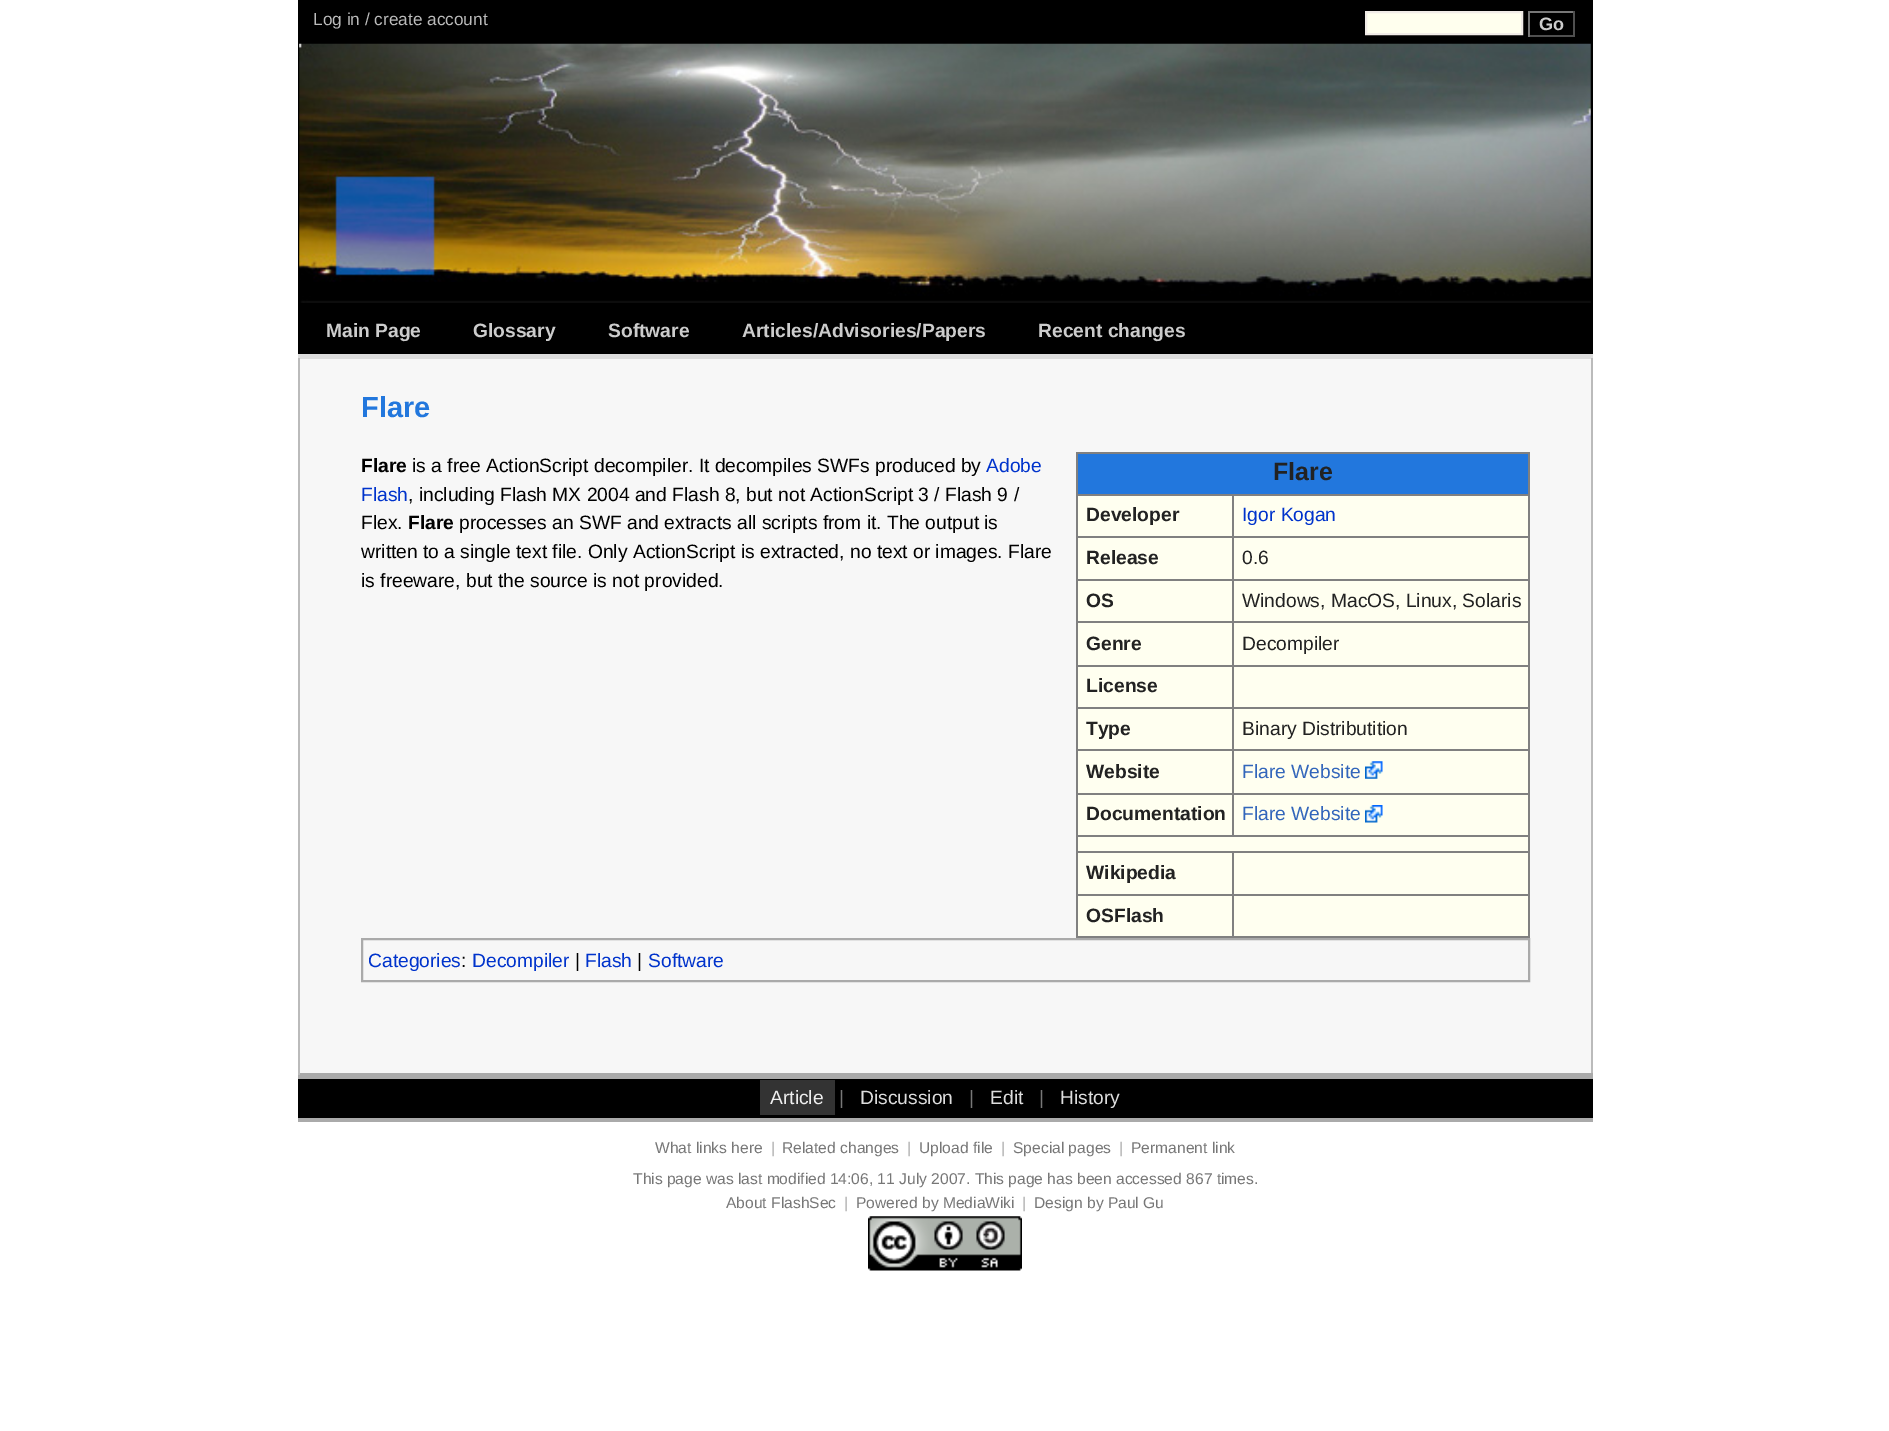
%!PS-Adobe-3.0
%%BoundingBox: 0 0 1889 1431
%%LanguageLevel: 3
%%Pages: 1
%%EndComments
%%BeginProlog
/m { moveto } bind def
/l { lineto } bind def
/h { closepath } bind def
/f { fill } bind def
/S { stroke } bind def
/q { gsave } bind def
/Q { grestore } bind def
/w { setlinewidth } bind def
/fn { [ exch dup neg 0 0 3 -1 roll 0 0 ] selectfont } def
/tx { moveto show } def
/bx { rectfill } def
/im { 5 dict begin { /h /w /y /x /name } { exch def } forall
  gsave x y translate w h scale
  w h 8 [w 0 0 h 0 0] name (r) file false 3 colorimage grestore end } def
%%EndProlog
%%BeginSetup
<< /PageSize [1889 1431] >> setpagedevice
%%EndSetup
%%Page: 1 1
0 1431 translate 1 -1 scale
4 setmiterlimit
1 setgray
0 0 1889 1431 bx
0 setgray
298 0 1295 354 bx
(image0.raw) 299 43 1292 260 im
0.867 setgray
298 358 1295 1 bx
0.733 setgray
1591 357 2 718 bx
0.667 setgray
298 1073 1295 2 bx
0.733 setgray
298 357 2 718 bx
0.867 setgray
298 354 1295 4 bx
/LiberationSans-Regular 17.25 fn
0.733 setgray
(Log in / create account) 313 25 tx
1 1 0.933 setrgbcolor
1366 12 m 1522 12 l 1522 34 l 1366 34 l h q f Q
0.945 0.925 0.906 setrgbcolor
2 w
S
0.467 setgray
1528 11 47 2 bx
0.31 setgray
1573 11 2 26 bx
1528 35 47 2 bx
0.467 setgray
1528 11 2 26 bx
/LiberationSans-Bold 18 fn
0.8 setgray
(Go) 1539 30 tx
/LiberationSans-Bold 19.25 fn
(Main Page) 326 337 tx
(Glossary) 473 337 tx
(Software) 608 337 tx
(Articles/Advisories/Papers) 742 337 tx
(Recent changes) 1038 337 tx
0.969 setgray
300 359 1291 714 bx
/LiberationSans-Bold 29 fn
0.133 0.467 0.867 setrgbcolor
(Flare) 361 417 tx
/LiberationSans-Bold 19.25 fn
0 setgray
(Flare) 361 472 tx
/LiberationSans-Regular 19.25 fn
(is a free ActionScript decompiler. It decompiles SWFs produced by) 412 472 tx
0 0.2 0.8 setrgbcolor
(Adobe) 986 472 tx
(Flash) 361 501 tx
0 setgray
(, including Flash MX 2004 and Flash 8, but not ActionScript 3 / Flash 9 /) 408 501 tx
(Flex.) 361 529 tx
/LiberationSans-Bold 19.25 fn
(Flare) 408 529 tx
/LiberationSans-Regular 19.25 fn
(processes an SWF and extracts all scripts from it. The output is) 459 529 tx
(written to a single text file. Only ActionScript is extracted, no text or images. Flare) 361 558 tx
(is freeware, but the source is not provided.) 361 587 tx
0.502 setgray
1076 452 454 2 bx
1528 452 2 486 bx
1076 936 454 2 bx
1076 452 2 486 bx
0.133 0.467 0.867 setrgbcolor
1078 454 450 40 bx
/LiberationSans-Bold 25 fn
0.133 setgray
(Flare) 1273 480 tx
1 1 0.941 setrgbcolor
1078 496 154 40 bx
0.502 setgray
1232 494 298 2 bx
1232 536 298 2 bx
1232 579 298 2 bx
1232 621 298 2 bx
1232 665 298 2 bx
1232 707 298 2 bx
1232 749 298 2 bx
1232 793 298 2 bx
1076 835 454 2 bx
1232 793 2 44 bx
1076 793 158 2 bx
1232 749 2 46 bx
1076 749 158 2 bx
1232 707 2 44 bx
1076 707 158 2 bx
1232 665 2 44 bx
1076 665 158 2 bx
1232 621 2 46 bx
1076 621 158 2 bx
1232 579 2 44 bx
1076 579 158 2 bx
1232 536 2 45 bx
1076 536 158 2 bx
1232 494 2 43 bx
1076 494 158 2 bx
/LiberationSans-Bold 19.25 fn
0.133 setgray
(Developer) 1086 521 tx
1 1 0.941 setrgbcolor
1234 496 294 40 bx
/LiberationSans-Regular 19.25 fn
0 0.2 0.8 setrgbcolor
(Igor Kogan) 1242 521 tx
1 1 0.941 setrgbcolor
1078 538 154 41 bx
/LiberationSans-Bold 19.25 fn
0.133 setgray
(Release) 1086 564 tx
1 1 0.941 setrgbcolor
1234 538 294 41 bx
/LiberationSans-Regular 19.25 fn
0.133 setgray
(0.6) 1242 564 tx
1 1 0.941 setrgbcolor
1078 581 154 40 bx
/LiberationSans-Bold 19.25 fn
0.133 setgray
(OS) 1086 607 tx
1 1 0.941 setrgbcolor
1234 581 294 40 bx
/LiberationSans-Regular 19.25 fn
0.133 setgray
(Windows, MacOS, Linux, Solaris) 1242 607 tx
1 1 0.941 setrgbcolor
1078 623 154 42 bx
/LiberationSans-Bold 19.25 fn
0.133 setgray
(Genre) 1086 650 tx
1 1 0.941 setrgbcolor
1234 623 294 42 bx
/LiberationSans-Regular 19.25 fn
0.133 setgray
(Decompiler) 1242 650 tx
1 1 0.941 setrgbcolor
1078 667 154 40 bx
/LiberationSans-Bold 19.25 fn
0.133 setgray
(License) 1086 692 tx
1 1 0.941 setrgbcolor
1234 667 294 40 bx
1078 709 154 40 bx
0.133 setgray
(Type) 1086 735 tx
1 1 0.941 setrgbcolor
1234 709 294 40 bx
/LiberationSans-Regular 19.25 fn
0.133 setgray
(Binary Distributition) 1242 735 tx
1 1 0.941 setrgbcolor
1078 751 154 42 bx
/LiberationSans-Bold 19.25 fn
0.133 setgray
(Website) 1086 778 tx
1 1 0.941 setrgbcolor
1234 751 294 42 bx
/LiberationSans-Regular 19.25 fn
0.2 0.4 0.733 setrgbcolor
(Flare Website) 1242 778 tx
(image1.raw) 1365 761 18 18 im
1 1 0.941 setrgbcolor
1078 795 154 40 bx
/LiberationSans-Bold 19.25 fn
0.133 setgray
(Documentation) 1086 820 tx
1 1 0.941 setrgbcolor
1234 795 294 40 bx
/LiberationSans-Regular 19.25 fn
0.2 0.4 0.733 setrgbcolor
(Flare Website) 1242 820 tx
(image2.raw) 1365 805 18 18 im
1 1 0.941 setrgbcolor
1078 837 450 14 bx
1078 853 154 41 bx
0.502 setgray
1232 851 298 2 bx
1232 894 298 2 bx
1232 894 2 44 bx
1076 894 158 2 bx
1232 851 2 45 bx
1076 851 158 2 bx
/LiberationSans-Bold 19.25 fn
0.133 setgray
(Wikipedia) 1086 879 tx
1 1 0.941 setrgbcolor
1234 853 294 41 bx
1078 896 154 40 bx
0.133 setgray
(OSFlash) 1086 922 tx
1 1 0.941 setrgbcolor
1234 896 294 40 bx
0.667 setgray
362 939 1167 42 rectstroke
/LiberationSans-Regular 19.25 fn
0 0.2 0.8 setrgbcolor
(Categories) 368 967 tx
0 setgray
(:) 461 967 tx
0 0.2 0.8 setrgbcolor
(Decompiler) 472 967 tx
0 setgray
(|) 575 967 tx
0 0.2 0.8 setrgbcolor
(Flash) 585 967 tx
0 setgray
(|) 637 967 tx
0 0.2 0.8 setrgbcolor
(Software) 648 967 tx
0 setgray
298 1079 1295 39 bx
0.667 setgray
298 1075 1295 4 bx
298 1118 1295 4 bx
0.2 setgray
760 1080 75 35 bx
0.933 setgray
(Article) 770 1104 tx
0.467 setgray
(|) 839 1104 tx
0.867 setgray
(Discussion) 860 1104 tx
0.467 setgray
(|) 969 1104 tx
0.867 setgray
(Edit) 990 1104 tx
0.467 setgray
(|) 1039 1104 tx
0.867 setgray
(History) 1060 1104 tx
/LiberationSans-Regular 15.6 fn
0.467 setgray
(What links here) 655 1153 tx
0.667 setgray
(|) 771 1153 tx
0.467 setgray
(Related changes) 782 1153 tx
0.667 setgray
(|) 907 1153 tx
0.467 setgray
(Upload file) 919 1153 tx
0.667 setgray
(|) 1001 1153 tx
0.467 setgray
(Special pages) 1013 1153 tx
0.667 setgray
(|) 1119 1153 tx
0.467 setgray
(Permanent link) 1131 1153 tx
(This page was last modified 14:06, 11 July 2007. This page has been accessed 867 times.) 633 1184 tx
(About FlashSec) 726 1208 tx
0.667 setgray
(|) 844 1208 tx
0.467 setgray
(Powered by MediaWiki) 856 1208 tx
0.667 setgray
(|) 1022 1208 tx
0.467 setgray
(Design by Paul Gu) 1034 1208 tx
(image3.raw) 868 1216 154 55 im
showpage
%%EOF
